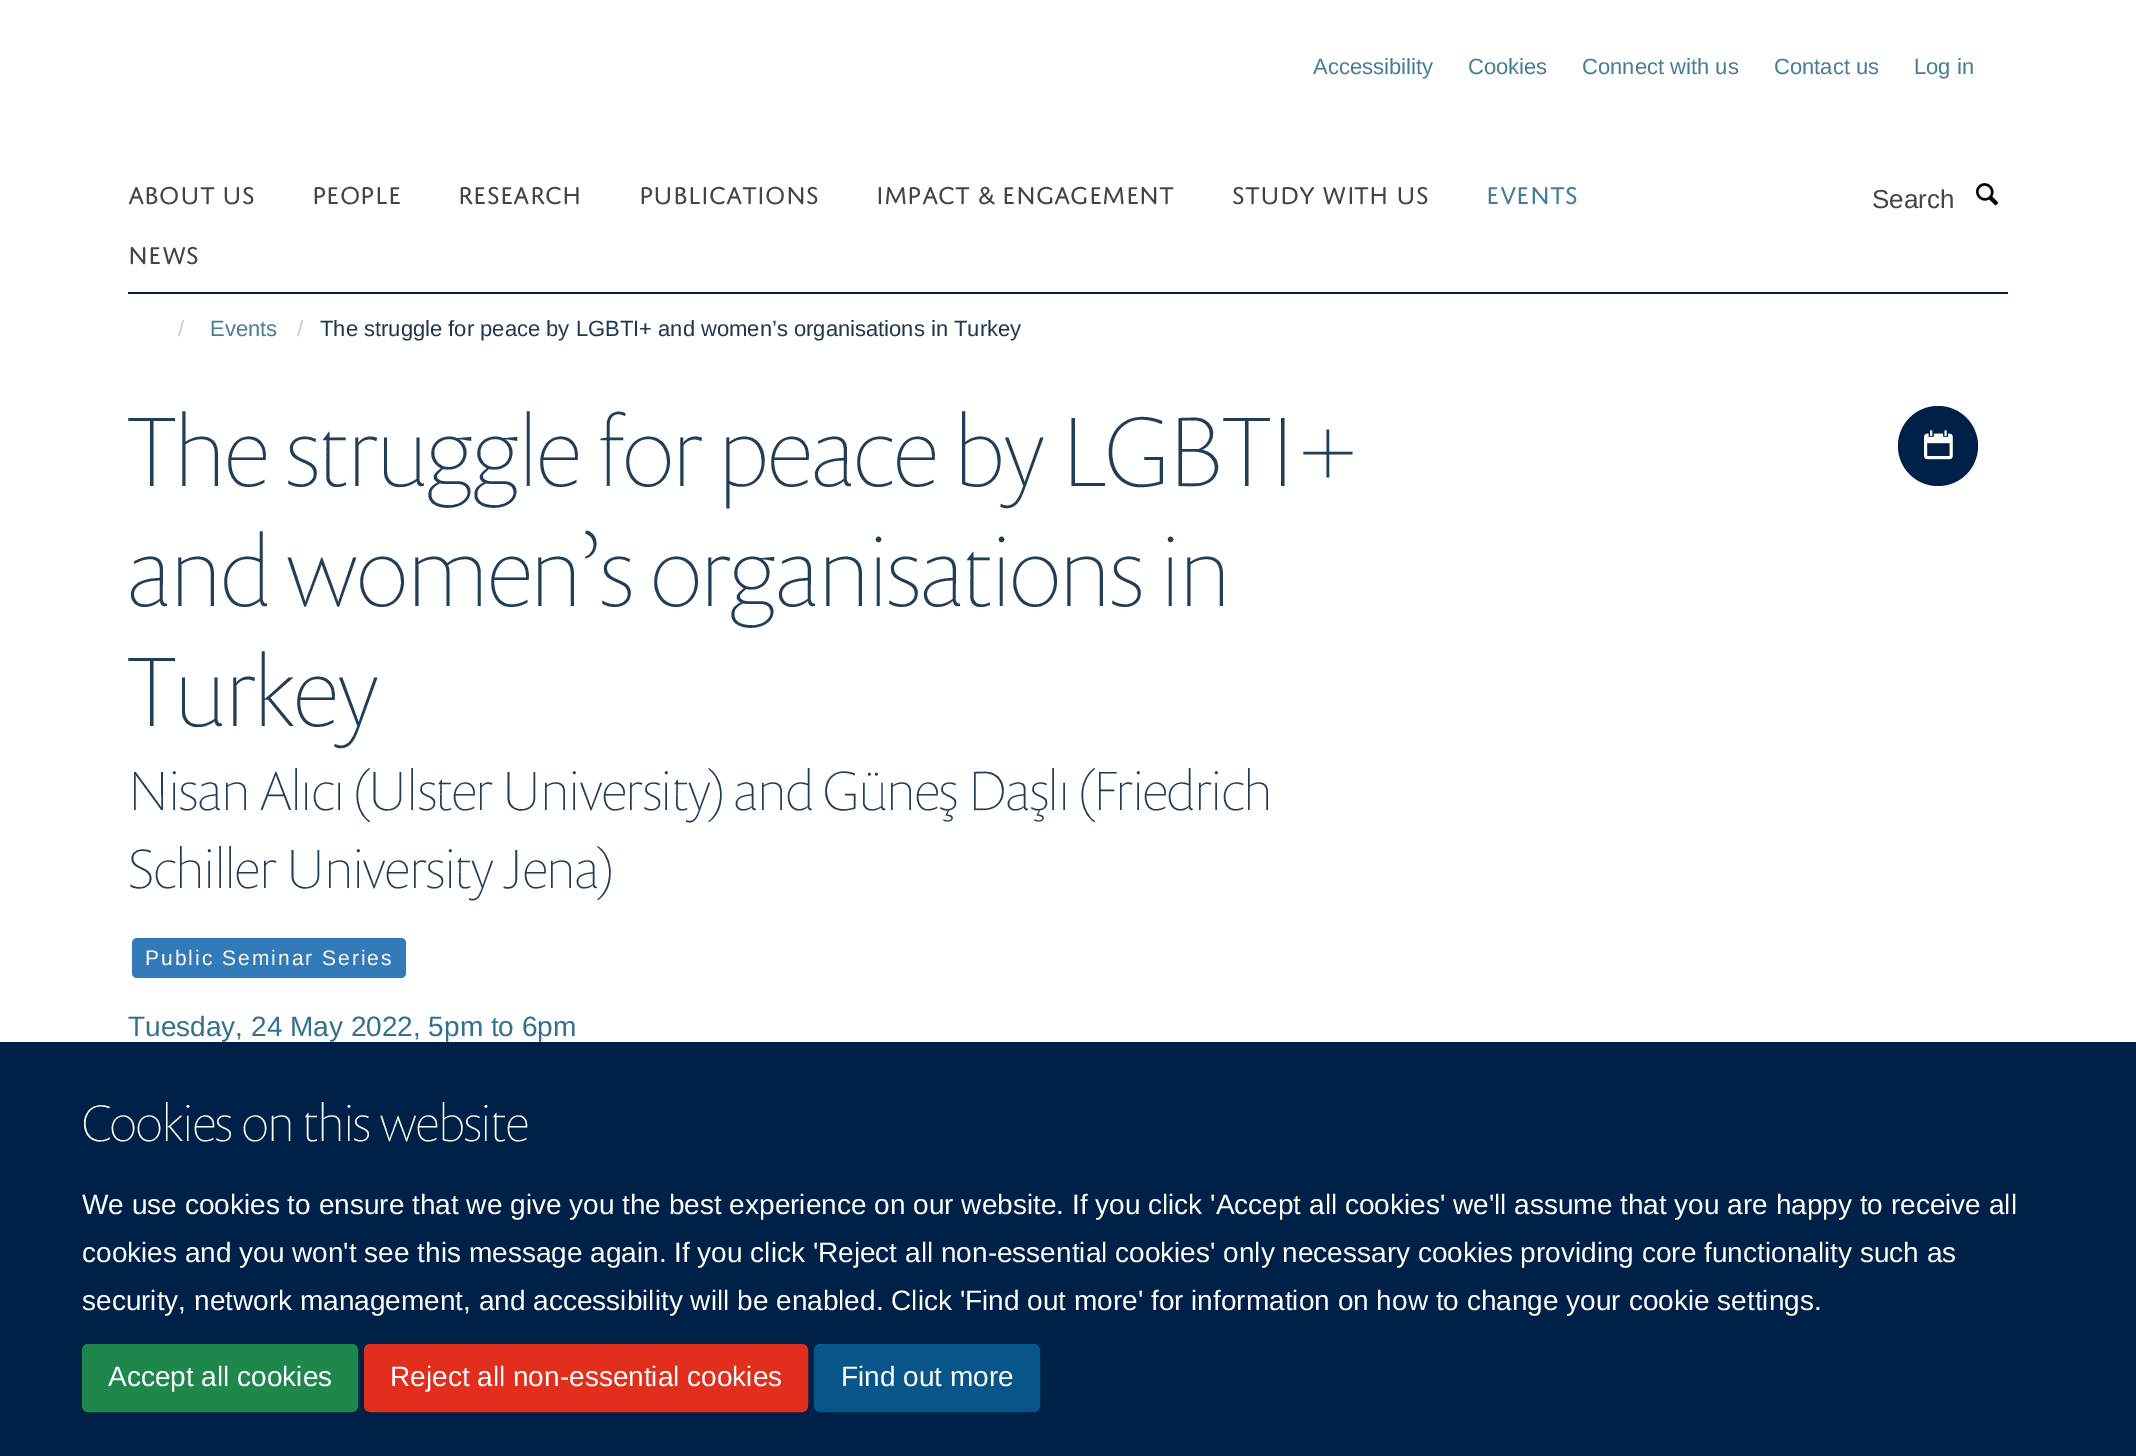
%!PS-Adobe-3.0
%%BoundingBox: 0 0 2136 1456
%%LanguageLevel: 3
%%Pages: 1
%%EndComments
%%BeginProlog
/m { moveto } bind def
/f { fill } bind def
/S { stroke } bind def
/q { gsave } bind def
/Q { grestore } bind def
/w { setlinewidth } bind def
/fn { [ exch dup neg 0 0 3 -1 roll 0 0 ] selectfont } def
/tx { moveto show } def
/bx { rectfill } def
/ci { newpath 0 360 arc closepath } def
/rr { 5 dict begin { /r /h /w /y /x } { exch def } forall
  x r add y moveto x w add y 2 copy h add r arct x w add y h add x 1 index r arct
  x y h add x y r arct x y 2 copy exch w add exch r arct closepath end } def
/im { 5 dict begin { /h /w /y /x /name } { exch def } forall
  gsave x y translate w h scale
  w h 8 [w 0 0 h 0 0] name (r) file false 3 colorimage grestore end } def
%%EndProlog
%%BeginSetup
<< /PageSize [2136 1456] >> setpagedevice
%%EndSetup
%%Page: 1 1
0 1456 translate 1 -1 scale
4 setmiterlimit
1 setgray
0 0 2136 1456 bx
/LiberationSans-Regular 22 fn
0.263 0.494 0.588 setrgbcolor
(Accessibility) 1313 74 tx
(Cookies) 1468 74 tx
(Connect with us) 1582 74 tx
(Contact us) 1774 74 tx
(Log in) 1914 74 tx
0 0.129 0.278 setrgbcolor
128 292 1880 2 bx
/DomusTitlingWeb-Regular 26 fn
0.267 setgray
(ABOUT US) 128 204 tx
(PEOPLE) 312 204 tx
(RESEARCH) 458 204 tx
(PUBLICATIONS) 639 204 tx
(IMPACT & ENGAGEMENT) 876 204 tx
(STUDY WITH US) 1232 204 tx
0.263 0.494 0.588 setrgbcolor
(EVENTS) 1486 204 tx
0.267 setgray
(NEWS) 128 264 tx
/LiberationSans-Regular 26 fn
(Search) 1872 208 tx
(image0.raw) 1976 183 23 23 im
/LiberationSans-Regular 22 fn
0.8 setgray
(/) 178 336 tx
0.263 0.494 0.588 setrgbcolor
(Events) 210 336 tx
0.8 setgray
(/) 297 336 tx
0.114 0.22 0.314 setrgbcolor
(The struggle for peace by LGBTI+ and women’s organisations in Turkey) 320 336 tx
/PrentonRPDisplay-Thin 100 fn
0.125 0.243 0.345 setrgbcolor
(The struggle for peace by LGBTI+) 128 486 tx
(and women’s organisations in) 128 606 tx
(Turkey) 128 726 tx
/PrentonRPDisplay-Thin 56 fn
(Nisan Alıcı \(Ulster University\) and Güneş Daşlı \(Friedrich) 128 810 tx
(Schiller University Jena\)) 128 888 tx
0.2 0.478 0.722 setrgbcolor
132 938 274 40 5 rr f
/LiberationSans-Regular 21 fn
1 setgray
145 965 m 2 0 (Public Seminar Series) ashow
/LiberationSans-Regular 28 fn
0.192 0.439 0.561 setrgbcolor
(Tuesday, 24 May 2022, 5pm to 6pm) 128 1036 tx
0 0.129 0.278 setrgbcolor
1938 446 40 ci f
(image1.raw) 1924 430 29 30 im
0 1042 2136 414 bx
/PrentonRPDisplay-Thin 52 fn
1 setgray
(Cookies on this website) 82 1141 tx
/LiberationSans-Regular 28 fn
(We use cookies to ensure that we give you the best experience on our website. If you click 'Accept all cookies' we'll assume that you are happy to receive all) 82 1214 tx
(cookies and you won't see this message again. If you click 'Reject all non-essential cookies' only necessary cookies providing core functionality such as) 82 1262 tx
(security, network management, and accessibility will be enabled. Click 'Find out more' for information on how to change your cookie settings.) 82 1310 tx
0.118 0.529 0.294 setrgbcolor
83 1345 274 66 5 rr q f Q
2 w
S
1 setgray
(Accept all cookies) 108 1386 tx
0.886 0.18 0.11 setrgbcolor
365 1345 442 66 5 rr q f Q
S
1 setgray
(Reject all non-essential cookies) 390 1386 tx
0.031 0.333 0.537 setrgbcolor
815 1345 224 66 5 rr q f Q
S
1 setgray
(Find out more) 841 1386 tx
showpage
%%EOF
